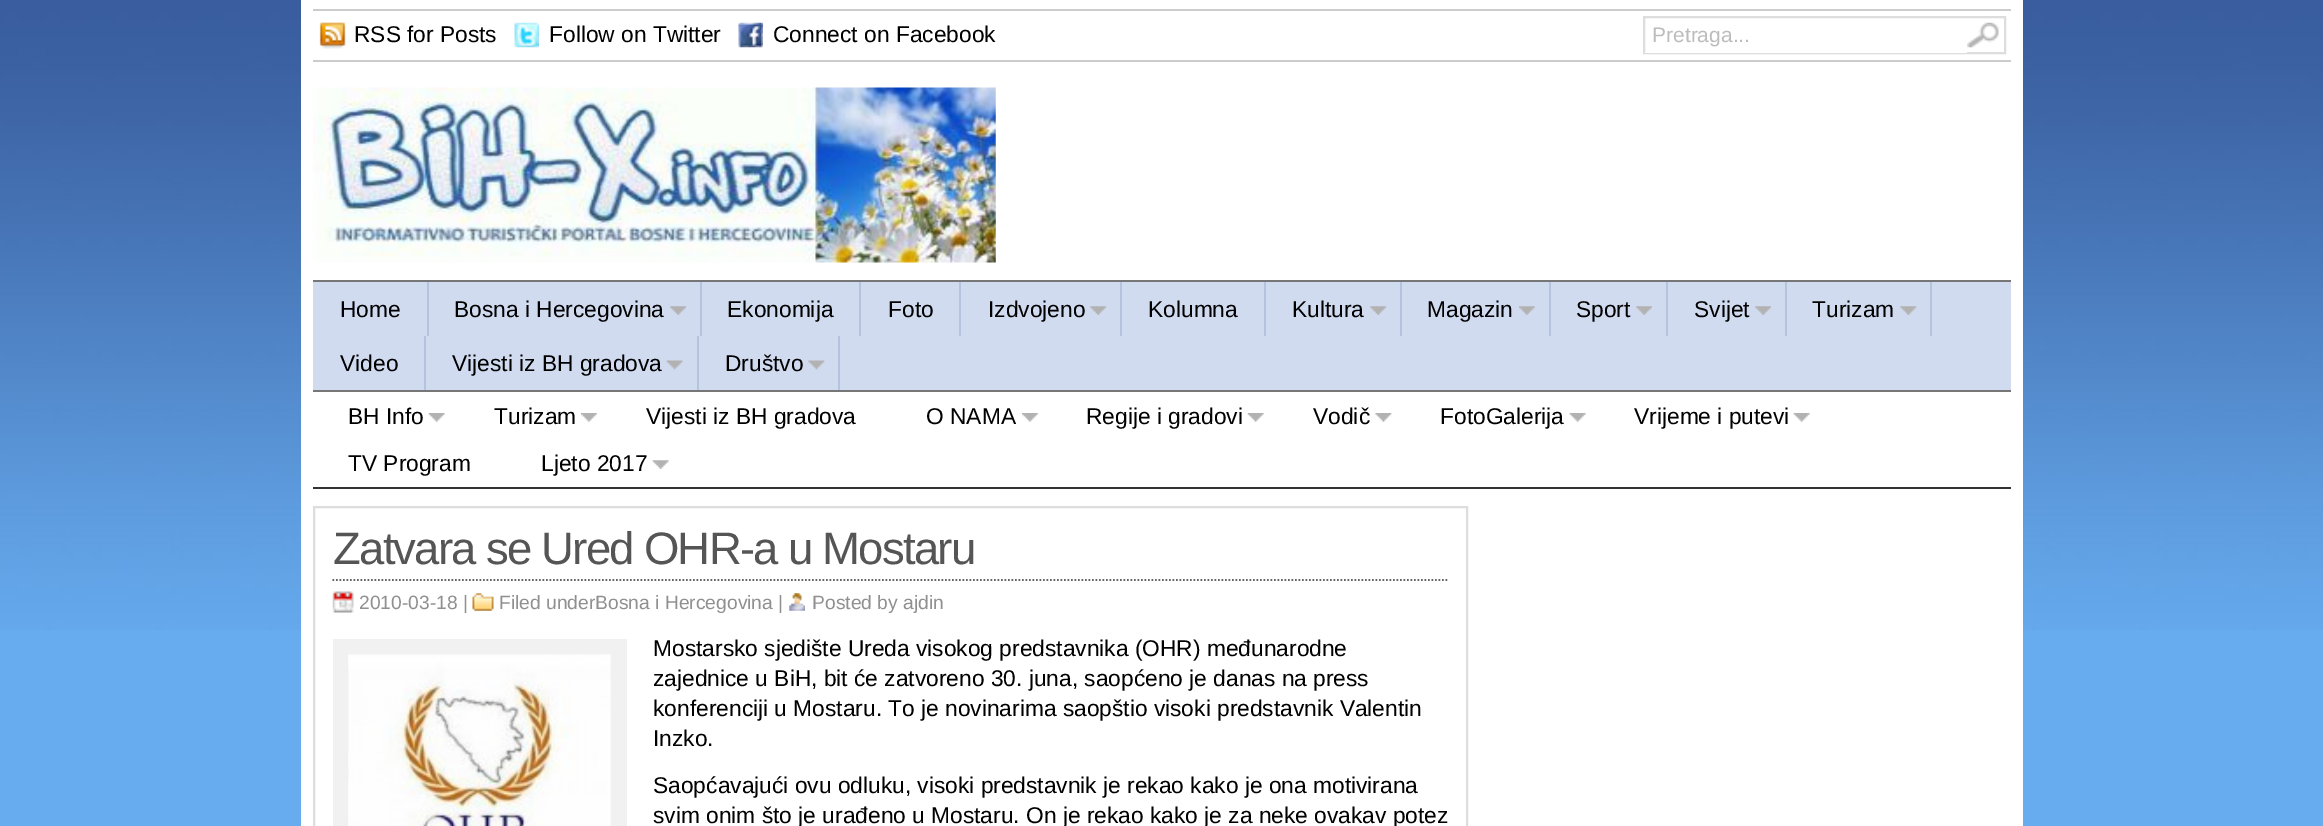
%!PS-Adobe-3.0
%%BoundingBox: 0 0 2323 826
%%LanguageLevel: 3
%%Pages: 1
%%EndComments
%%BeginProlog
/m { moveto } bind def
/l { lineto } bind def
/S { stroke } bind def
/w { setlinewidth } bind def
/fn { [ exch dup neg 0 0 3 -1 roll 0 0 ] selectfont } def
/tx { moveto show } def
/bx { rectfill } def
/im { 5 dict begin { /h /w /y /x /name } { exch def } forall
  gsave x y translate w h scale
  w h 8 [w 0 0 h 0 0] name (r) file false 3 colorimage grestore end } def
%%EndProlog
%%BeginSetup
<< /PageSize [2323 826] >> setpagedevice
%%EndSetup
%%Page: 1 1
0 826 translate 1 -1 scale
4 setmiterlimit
0.404 0.675 0.937 setrgbcolor
0 0 2323 826 bx
(image0.raw) 0 0 2323 630 im
1 setgray
301 0 1722 826 bx
0.8 setgray
313 9 1698 2 bx
313 60 1698 2 bx
(image1.raw) 319 22 27 27 im
/LiberationSans-Regular 22.75 fn
0 setgray
(RSS for Posts) 354 42 tx
(image2.raw) 514 22 25 26 im
(Follow on Twitter) 549 42 tx
(image3.raw) 738 22 25 26 im
(Connect on Facebook) 773 42 tx
0.867 setgray
2 w
1644 17 361 36 rectstroke
1 setgray
1645 52 322 1 bx
/LiberationSans-Regular 21 fn
0.737 setgray
(Pretraga...) 1652 42 tx
(image4.raw) 1967 22 32 26 im
(image5.raw) 313 87 683 176 im
0.82 0.859 0.937 setrgbcolor
313 282 1698 108 bx
0.467 setgray
313 280 1698 2 bx
313 390 1698 2 bx
0.71 0.765 0.875 setrgbcolor
427 282 2 54 bx
/LiberationSans-Regular 22.75 fn
0 setgray
(Home) 340 317 tx
0.71 0.765 0.875 setrgbcolor
700 282 2 54 bx
0 setgray
(Bosna i Hercegovina) 454 317 tx
(image6.raw) 670 306 16 9 im
0.71 0.765 0.875 setrgbcolor
859 282 2 54 bx
0 setgray
(Ekonomija) 727 317 tx
0.71 0.765 0.875 setrgbcolor
959 282 2 54 bx
0 setgray
(Foto) 888 317 tx
0.71 0.765 0.875 setrgbcolor
1120 282 2 54 bx
0 setgray
(Izdvojeno) 988 317 tx
(image6.raw) 1090 306 16 9 im
0.71 0.765 0.875 setrgbcolor
1264 282 2 54 bx
0 setgray
(Kolumna) 1148 317 tx
0.71 0.765 0.875 setrgbcolor
1400 282 2 54 bx
0 setgray
(Kultura) 1292 317 tx
(image6.raw) 1370 306 16 9 im
0.71 0.765 0.875 setrgbcolor
1549 282 2 54 bx
0 setgray
(Magazin) 1427 317 tx
(image7.raw) 1519 306 16 9 im
0.71 0.765 0.875 setrgbcolor
1666 282 2 54 bx
0 setgray
(Sport) 1576 317 tx
(image6.raw) 1636 306 16 9 im
0.71 0.765 0.875 setrgbcolor
1785 282 2 54 bx
0 setgray
(Svijet) 1694 317 tx
(image8.raw) 1755 306 16 9 im
0.71 0.765 0.875 setrgbcolor
1930 282 2 54 bx
0 setgray
(Turizam) 1812 317 tx
(image9.raw) 1900 306 17 9 im
0.71 0.765 0.875 setrgbcolor
424 336 2 54 bx
0 setgray
(Video) 340 371 tx
0.71 0.765 0.875 setrgbcolor
697 336 2 54 bx
0 setgray
(Vijesti iz BH gradova) 452 371 tx
(image10.raw) 666 360 17 10 im
0.71 0.765 0.875 setrgbcolor
838 336 2 54 bx
0 setgray
(Društvo) 725 371 tx
(image11.raw) 808 360 17 10 im
0.2 setgray
313 487 1698 2 bx
0 setgray
(BH Info) 348 424 tx
(image12.raw) 428 413 17 9 im
(Turizam) 494 424 tx
(image13.raw) 581 413 16 9 im
(Vijesti iz BH gradova) 646 424 tx
(O NAMA) 926 424 tx
(image14.raw) 1022 413 16 9 im
(Regije i gradovi) 1086 424 tx
(image12.raw) 1247 413 17 9 im
(Vodič) 1313 424 tx
(image15.raw) 1375 413 17 9 im
(FotoGalerija) 1440 424 tx
(image12.raw) 1569 413 17 9 im
(Vrijeme i putevi) 1634 424 tx
(image12.raw) 1793 413 17 9 im
(TV Program) 348 471 tx
(Ljeto 2017) 541 471 tx
(image16.raw) 652 460 17 9 im
0.867 setgray
314 507 1153 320 rectstroke
/LiberationSans-Regular 45.5 fn
0.333 setgray
333 564 m -1.75 0 (Zatvara se Ured OHR-a u Mostaru) ashow
0.4 setgray
1.8 w
[1.75 1.75] 0 setdash
332.5 580 m 1449 580 l S
(image17.raw) 332 591 22 22 im
/LiberationSans-Regular 19.25 fn
0.565 setgray
(2010-03-18 |) 359 609 tx
(image18.raw) 472 593 22 18 im
(Filed underBosna i Hercegovina |) 499 609 tx
(image19.raw) 789 593 16 18 im
(Posted by ajdin) 812 609 tx
0.945 setgray
333 639 294 187 bx
(image20.raw) 348 654 263 172 im
/LiberationSans-Regular 22.75 fn
0 setgray
(Mostarsko sjedište Ureda visokog predstavnika \(OHR\) međunarodne) 653 656 tx
(zajednice u BiH, bit će zatvoreno 30. juna, saopćeno je danas na press) 653 686 tx
(konferenciji u Mostaru. To je novinarima saopštio visoki predstavnik Valentin) 653 716 tx
(Inzko.) 653 746 tx
(Saopćavajući ovu odluku, visoki predstavnik je rekao kako je ona motivirana) 653 793 tx
(svim onim što je urađeno u Mostaru. On je rekao kako je za neke ovakav potez) 653 823 tx
showpage
%%EOF
